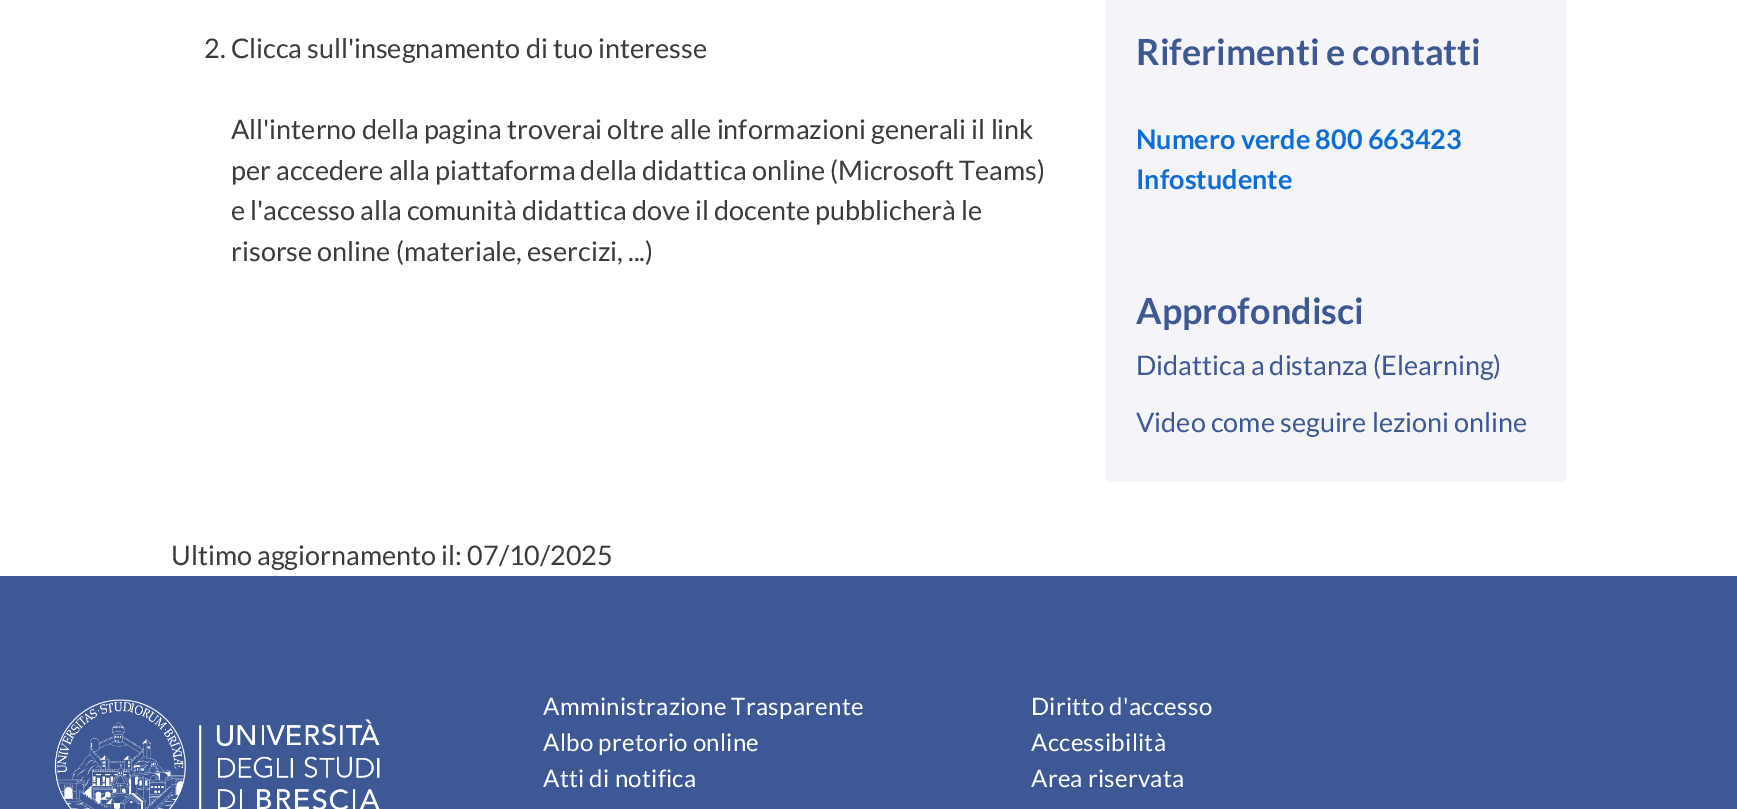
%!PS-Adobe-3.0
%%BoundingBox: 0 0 1737 809
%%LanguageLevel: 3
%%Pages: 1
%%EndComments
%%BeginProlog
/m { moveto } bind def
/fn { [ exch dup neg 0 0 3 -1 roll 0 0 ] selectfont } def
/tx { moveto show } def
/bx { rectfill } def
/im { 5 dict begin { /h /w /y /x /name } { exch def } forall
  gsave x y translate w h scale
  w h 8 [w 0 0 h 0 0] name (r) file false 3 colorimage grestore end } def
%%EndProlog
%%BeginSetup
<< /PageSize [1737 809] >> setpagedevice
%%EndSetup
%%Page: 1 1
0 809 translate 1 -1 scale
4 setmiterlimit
1 setgray
0 0 1737 809 bx
/Lato-Regular 27 fn
0.231 setgray
(2. Clicca sull'insegnamento di tuo interesse) 204 58 tx
(All'interno della pagina troverai oltre alle informazioni generali il link) 231 139 tx
(per accedere alla piattaforma della didattica online \(Microsoft Teams\)) 231 180 tx
(e l'accesso alla comunità didattica dove il docente pubblicherà le) 231 220 tx
(risorse online \(materiale, esercizi, ...\)) 231 261 tx
0.961 0.957 0.973 setrgbcolor
1106 0 460 482 bx
/Lato-Bold 36 fn
0.239 0.345 0.584 setrgbcolor
(Riferimenti e contatti) 1136 65 tx
/Lato-Bold 27 fn
0.059 0.431 0.831 setrgbcolor
(Numero verde 800 663423) 1136 149 tx
(Infostudente) 1136 189 tx
/Lato-Bold 36 fn
0.239 0.345 0.584 setrgbcolor
(Approfondisci) 1136 324 tx
/Lato-Regular 27 fn
(Didattica a distanza \(Elearning\)) 1136 375 tx
(Video come seguire lezioni online) 1136 432 tx
0.231 setgray
(Ultimo aggiornamento il: 07/10/2025) 171 565 tx
0.239 0.345 0.584 setrgbcolor
0 576 1737 233 bx
(image0.raw) 54 699 326 110 im
/Lato-Regular 24 fn
1 setgray
543 715 m 0.3 0 (Amministrazione Trasparente) ashow
543 751 m 0.3 0 (Albo pretorio online) ashow
543 787 m 0.3 0 (Atti di notifica) ashow
1031 715 m 0.3 0 (Diritto d'accesso) ashow
1031 751 m 0.3 0 (Accessibilità) ashow
1031 787 m 0.3 0 (Area riservata) ashow
showpage
%%EOF
